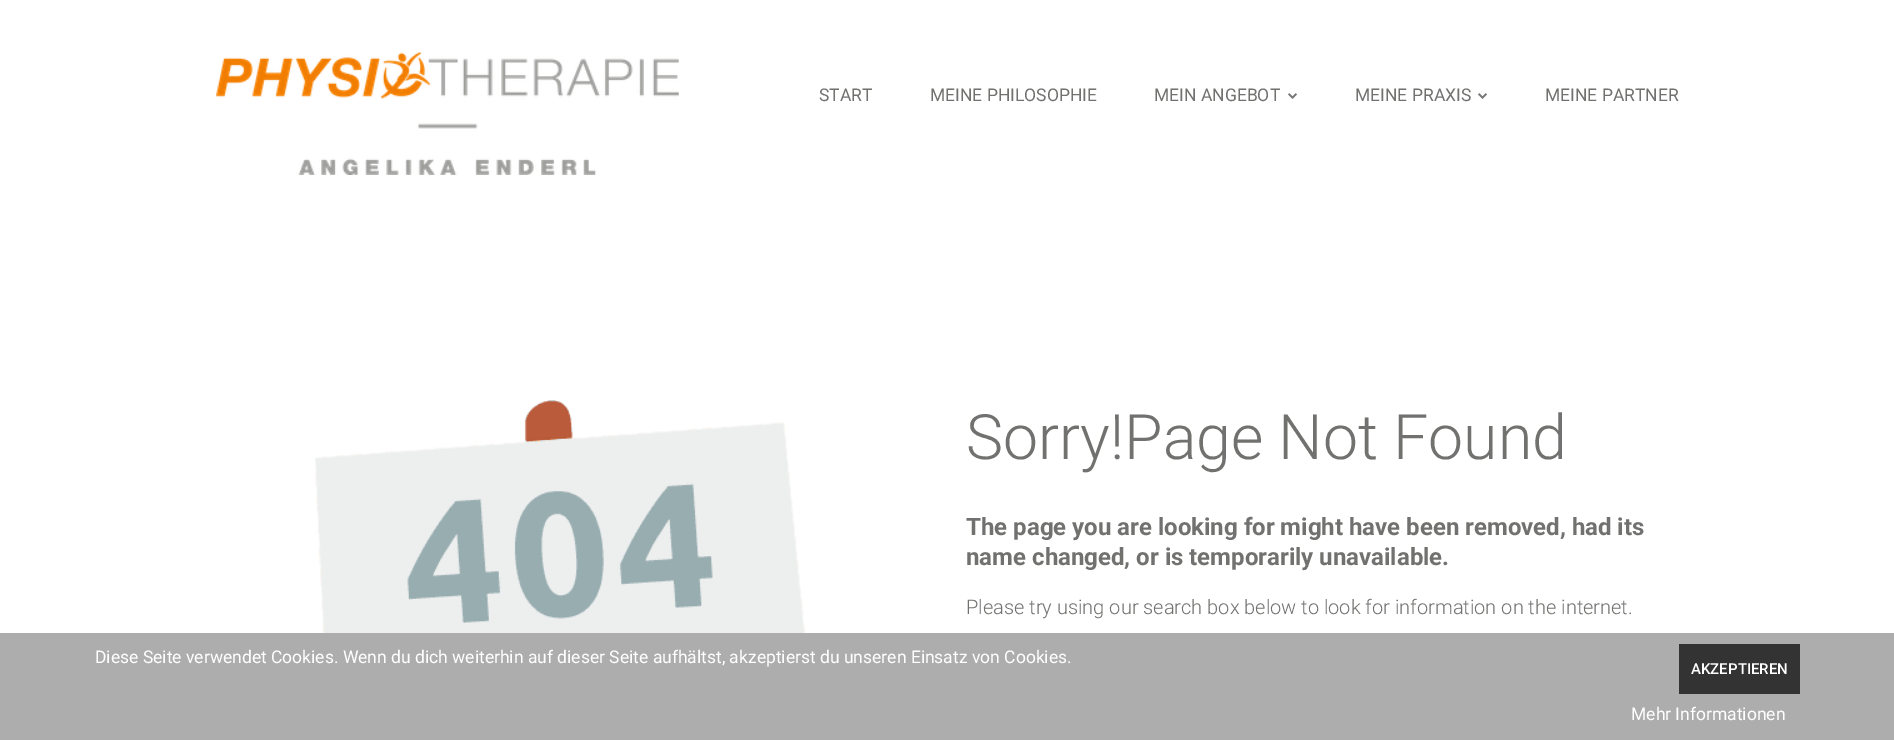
%!PS-Adobe-3.0
%%BoundingBox: 0 0 1894 740
%%LanguageLevel: 3
%%Pages: 1
%%EndComments
%%BeginProlog
/fn { [ exch dup neg 0 0 3 -1 roll 0 0 ] selectfont } def
/tx { moveto show } def
/bx { rectfill } def
/im { 5 dict begin { /h /w /y /x /name } { exch def } forall
  gsave x y translate w h scale
  w h 8 [w 0 0 h 0 0] name (r) file false 3 colorimage grestore end } def
%%EndProlog
%%BeginSetup
<< /PageSize [1894 740] >> setpagedevice
%%EndSetup
%%Page: 1 1
0 740 translate 1 -1 scale
4 setmiterlimit
1 setgray
0 0 1894 740 bx
(image0.raw) 216 52 463 123 im
/Roboto-Regular 17.5 fn
0.443 0.443 0.439 setrgbcolor
(START) 819 101 tx
(MEINE PHILOSOPHIE) 930 101 tx
(MEIN ANGEBOT) 1154 101 tx
(image1.raw) 1288 93 9 6 im
(MEINE PRAXIS) 1355 101 tx
(image1.raw) 1478 93 9 6 im
(MEINE PARTNER) 1545 101 tx
(image2.raw) 315 400 491 233 im
/Roboto-Light 62.5 fn
(Sorry!Page Not Found) 966 459 tx
/Roboto-Bold 24 fn
(The page you are looking for might have been removed, had its) 966 535 tx
(name changed, or is temporarily unavailable.) 966 565 tx
/Roboto-Light 20 fn
(Please try using our search box below to look for information on the internet.) 966 614 tx
0.678 setgray
0 633 1894 107 bx
/Roboto-Regular 17.5 fn
1 setgray
(Diese Seite verwendet Cookies. Wenn du dich weiterhin auf dieser Seite aufhältst, akzeptierst du unseren Einsatz von Cookies.) 95 663 tx
0.2 setgray
1679 644 121 50 bx
/Roboto-Medium 15 fn
1 setgray
(AKZEPTIEREN) 1691 674 tx
/Roboto-Regular 17.5 fn
(Mehr Informationen) 1631 720 tx
showpage
%%EOF
